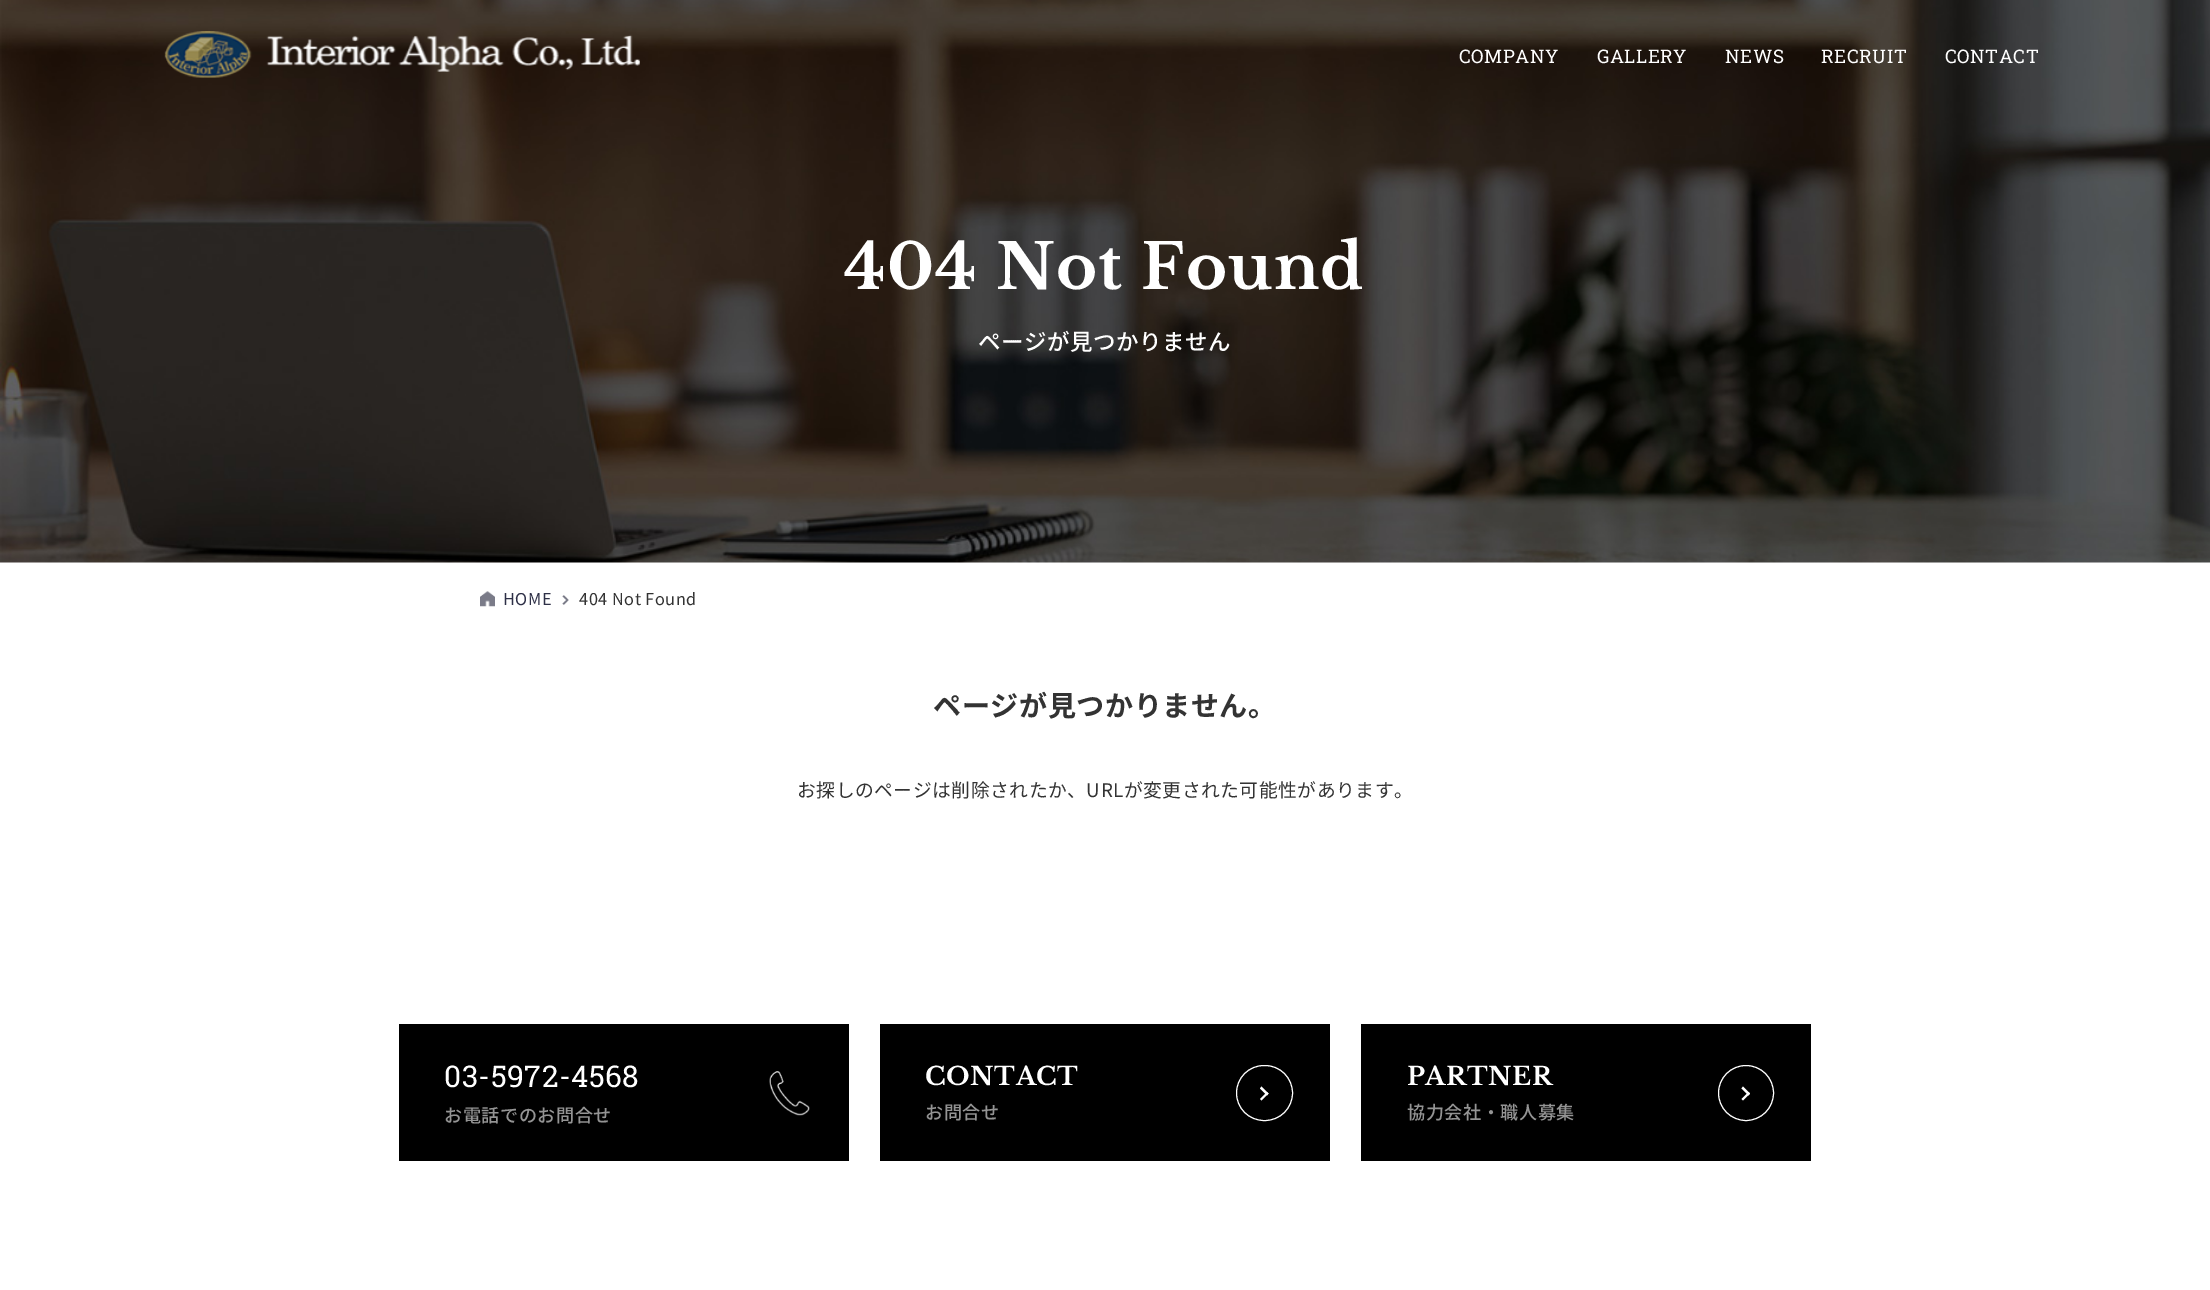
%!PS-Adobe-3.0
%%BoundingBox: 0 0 2210 1290
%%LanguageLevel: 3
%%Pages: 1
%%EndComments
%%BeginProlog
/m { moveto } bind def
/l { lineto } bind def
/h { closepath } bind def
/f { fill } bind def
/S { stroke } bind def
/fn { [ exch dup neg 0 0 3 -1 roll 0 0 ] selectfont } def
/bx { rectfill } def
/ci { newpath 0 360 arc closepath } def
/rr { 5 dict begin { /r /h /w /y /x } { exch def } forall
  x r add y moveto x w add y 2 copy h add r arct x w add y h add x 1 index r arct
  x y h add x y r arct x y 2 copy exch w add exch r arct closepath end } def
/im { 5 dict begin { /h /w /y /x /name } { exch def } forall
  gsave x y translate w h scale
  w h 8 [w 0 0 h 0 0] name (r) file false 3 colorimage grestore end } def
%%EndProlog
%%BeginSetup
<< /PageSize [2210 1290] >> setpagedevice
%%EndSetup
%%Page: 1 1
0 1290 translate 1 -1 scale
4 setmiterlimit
1 setgray
0 0 2210 1290 bx
(image1.raw) 0 0 2210 563 im
(image0.raw) 164 31 476 47 im
/RobotoSlab-Regular 18.75 fn
1459 63 m 0.55 0 (COMPANY) ashow
1597 63 m 0.55 0 (GALLERY) ashow
1725 63 m 0.55 0 (NEWS) ashow
1821 63 m 0.55 0 (RECRUIT) ashow
1945 63 m 0.55 0 (CONTACT) ashow
/LibreBaskerville-Bold 62.5 fn
844 289 m 1.25 0 (404 Not Found) ashow
/NotoSansJP-Medium 22.5 fn
978 350 m 0.55 0 (ページが見つかりません) ashow
(image2.raw) 480 591 15 16 im
/NotoSansJP-Regular 16.25 fn
0.18 0.188 0.278 setrgbcolor
503 605 m 0.55 0 (HOME) ashow
(image3.raw) 562 595 7 10 im
0.2 setgray
579 605 m 0.55 0 (404 Not Found) ashow
/NotoSansJP-Bold 28.1 fn
933 716 m 0.55 0 (ページが見つかりません。) ashow
/NotoSansJP-Regular 18.75 fn
797 797 m 0.55 0 (お探しのページは削除されたか、URLが変更された可能性があります。) ashow
0 setgray
399 1024 450 137 bx
/RobotoSlab-Regular 30 fn
1 setgray
444 1087 m 0.55 0 (03-5972-4568) ashow
/NotoSansJP-Medium 18.1 fn
0.58 setgray
444 1122 m 0.55 0 (お電話でのお問合せ) ashow
(image4.raw) 769 1071 41 45 im
0 setgray
880 1024 450 137 bx
/LibreBaskerville-Bold 25 fn
1 setgray
925 1085 m 0.55 0 (CONTACT) ashow
/NotoSansJP-Medium 18.1 fn
0.58 setgray
925 1119 m 0.55 0 (お問合せ) ashow
1 setgray
1236.5 1065.5 56 55 27.5 rr S
1261.5 1086.5 m 1268.5 1093.5 l 1267 1095.5 l 1260 1088.5 l h f
1267 1092 m 1268.5 1093.5 l 1261.5 1100.5 l 1260 1099 l h f
0 setgray
1361 1024 450 137 bx
/LibreBaskerville-Bold 25 fn
1 setgray
1407 1085 m 0.55 0 (PARTNER) ashow
/NotoSansJP-Medium 18.1 fn
0.58 setgray
1407 1119 m 0.55 0 (協力会社・職人募集) ashow
1 setgray
1746 1093 27.5 ci S
1743 1086.5 m 1750 1093.5 l 1748.5 1095.5 l 1741.5 1088.5 l h f
1748.5 1092 m 1750 1093.5 l 1743 1100.5 l 1741.5 1099 l h f
showpage
%%EOF
